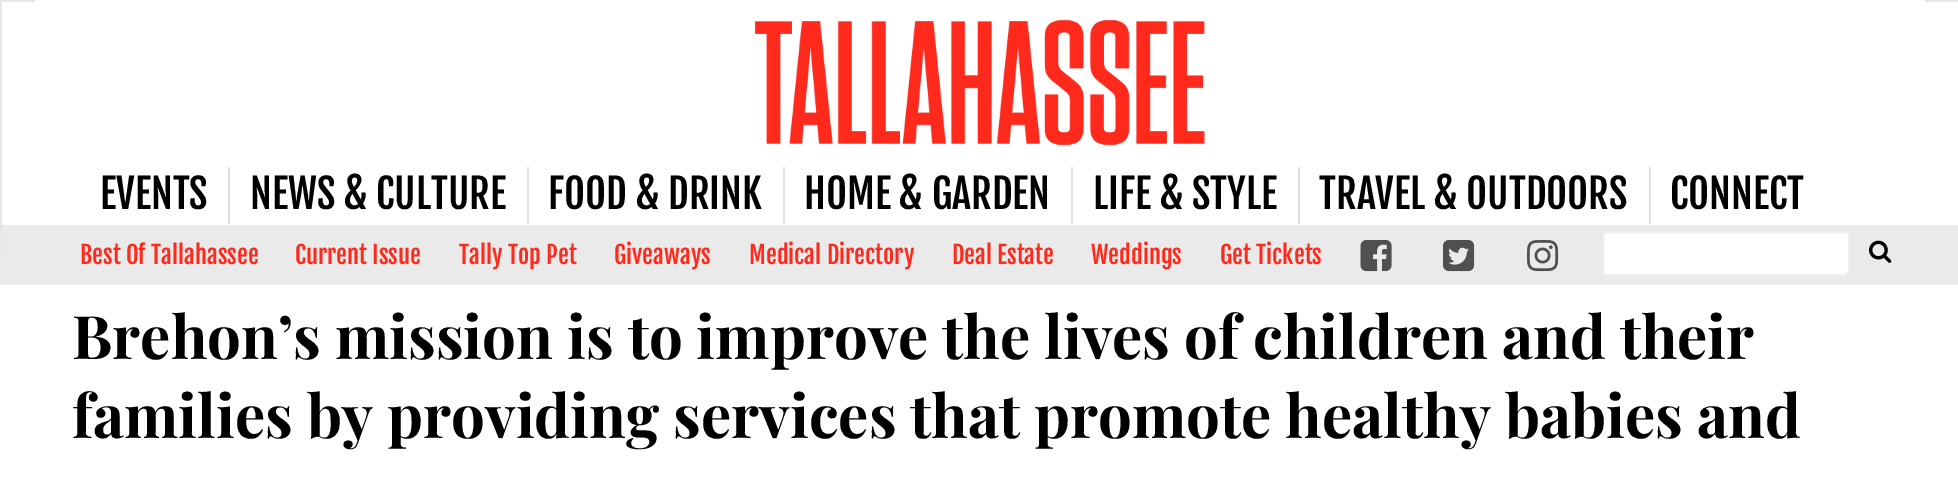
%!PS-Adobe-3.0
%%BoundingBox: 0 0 1958 487
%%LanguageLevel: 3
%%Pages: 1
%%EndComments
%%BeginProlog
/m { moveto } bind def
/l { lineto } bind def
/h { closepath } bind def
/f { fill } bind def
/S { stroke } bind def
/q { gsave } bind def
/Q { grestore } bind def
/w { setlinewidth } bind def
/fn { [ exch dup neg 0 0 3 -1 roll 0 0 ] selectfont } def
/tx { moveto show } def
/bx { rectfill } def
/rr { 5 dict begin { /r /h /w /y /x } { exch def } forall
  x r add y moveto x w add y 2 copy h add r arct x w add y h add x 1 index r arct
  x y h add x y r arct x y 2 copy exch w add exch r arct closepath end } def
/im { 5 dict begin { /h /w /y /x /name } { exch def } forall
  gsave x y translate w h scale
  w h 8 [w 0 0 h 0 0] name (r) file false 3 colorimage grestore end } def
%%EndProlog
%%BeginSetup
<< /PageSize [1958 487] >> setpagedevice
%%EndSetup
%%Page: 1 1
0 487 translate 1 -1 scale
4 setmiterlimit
1 setgray
0 0 1958 487 bx
0.902 setgray
0 0 1958 2 bx
0.918 setgray
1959 285 m 0 285 l 2 225 l 1958 225 l h f
0.902 setgray
0 285 m 0 0 l 2 2 l 2 225 l h f
1 setgray
35 0 1890 2 bx
(image0.raw) 755 20 450 125 im
0.878 setgray
228 167 2 57 bx
/FjallaOne-Regular 40.25 fn
0 setgray
(EVENTS) 100 209 tx
0.878 setgray
527 167 2 57 bx
0 setgray
(NEWS & CULTURE) 250 209 tx
0.878 setgray
783 167 2 57 bx
0 setgray
(FOOD & DRINK) 548 209 tx
0.878 setgray
1071 167 2 57 bx
0 setgray
(HOME & GARDEN) 804 209 tx
0.878 setgray
1298 167 2 57 bx
0 setgray
(LIFE & STYLE) 1093 209 tx
0.878 setgray
1649 167 2 57 bx
0 setgray
(TRAVEL & OUTDOORS) 1319 209 tx
(CONNECT) 1670 209 tx
/FjallaOne-Regular 24.25 fn
1 0.161 0.11 setrgbcolor
(Best Of Tallahassee) 80 264 tx
(Current Issue) 295 264 tx
(Tally Top Pet) 459 264 tx
(Giveaways) 614 264 tx
(Medical Directory) 749 264 tx
(Deal Estate) 952 264 tx
(Weddings) 1091 264 tx
(Get Tickets) 1220 264 tx
(image1.raw) 1360 240 32 32 im
(image2.raw) 1443 240 32 32 im
(image3.raw) 1527 240 32 32 im
1 setgray
1603 232 246 43 4 rr q f Q
0.933 setgray
2 w
S
(image4.raw) 1869 240 23 23 im
/PlayfairDisplay-Bold 60 fn
0 setgray
(Brehon’s mission is to improve the lives of children and their) 72 359 tx
(families by providing services that promote healthy babies and) 72 438 tx
showpage
%%EOF
